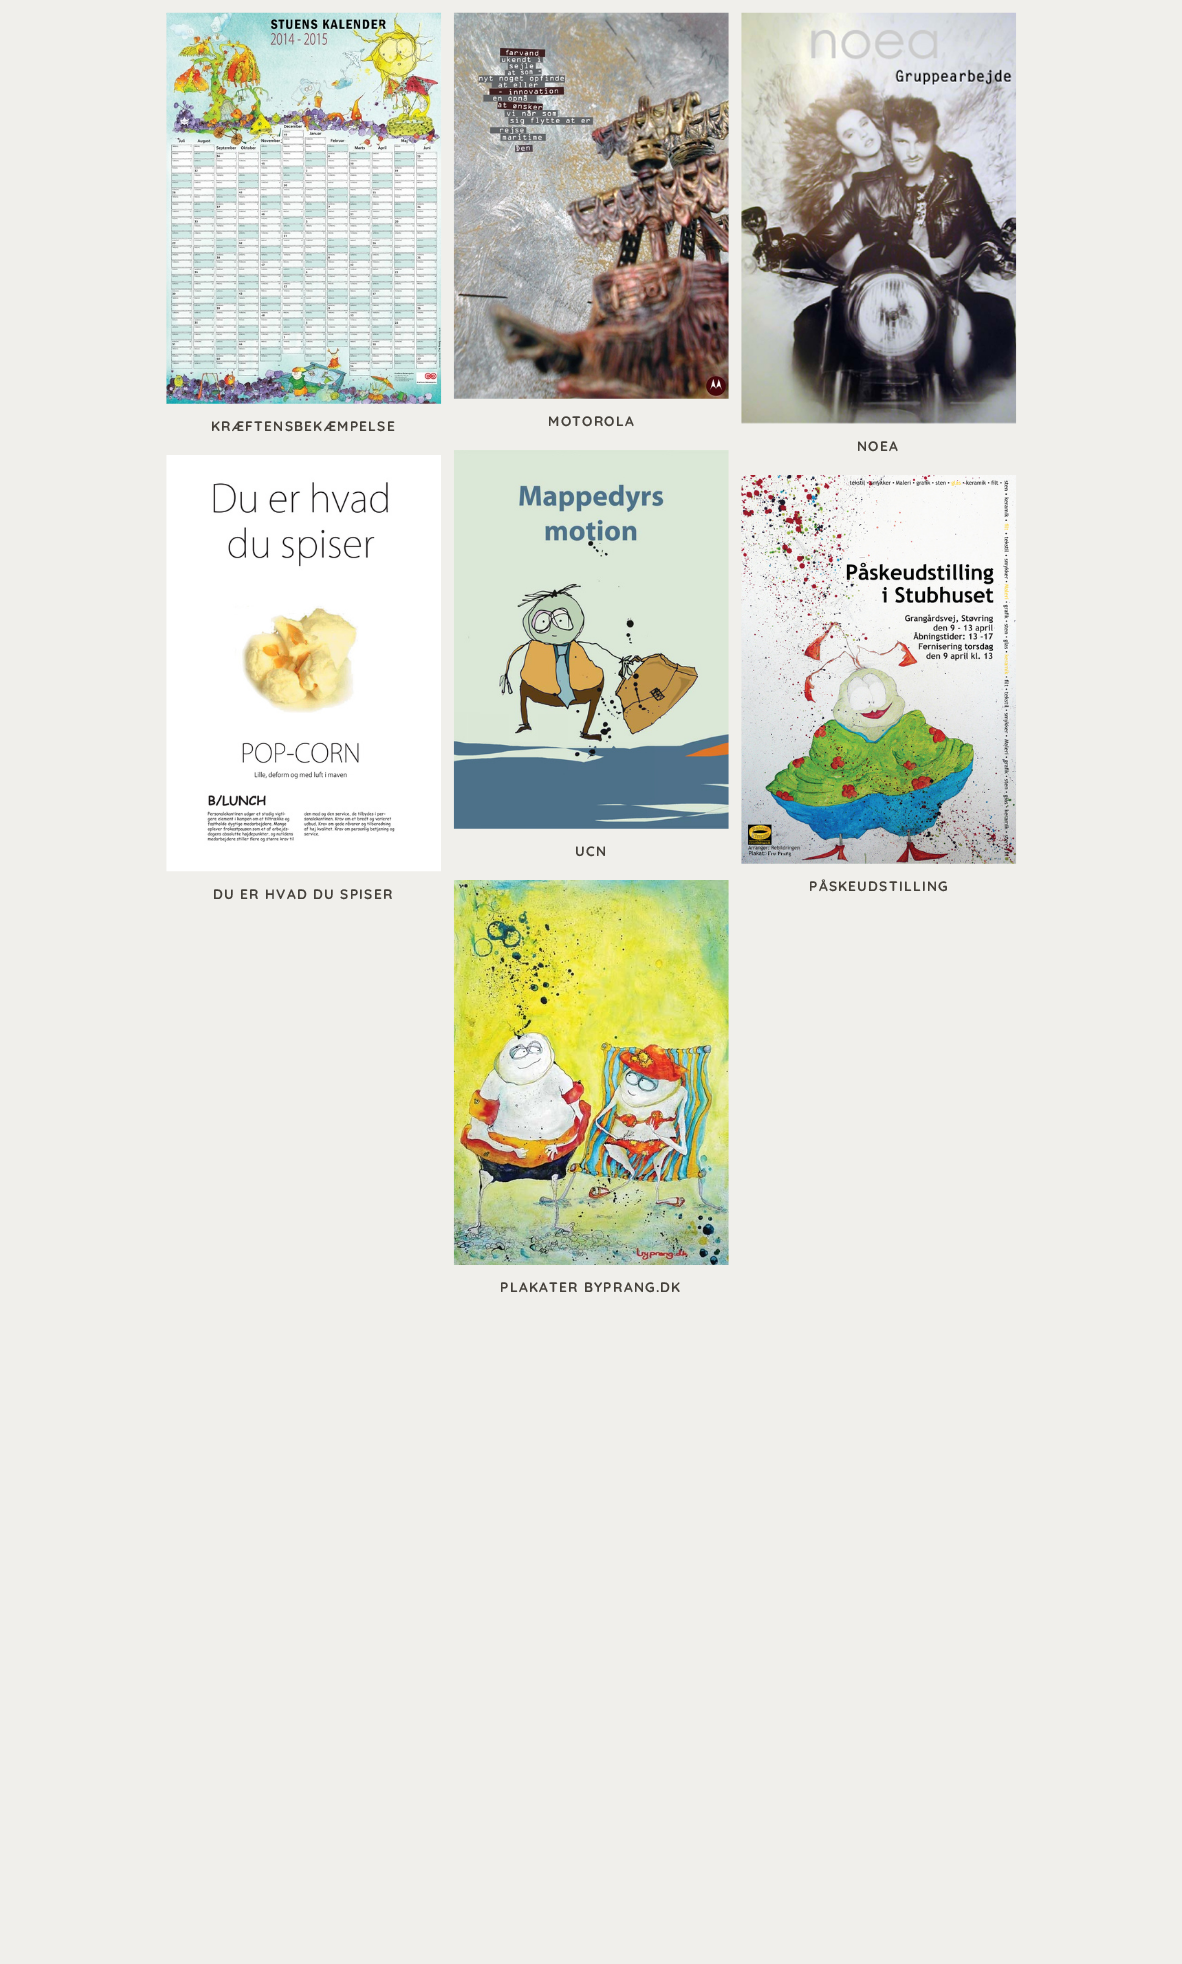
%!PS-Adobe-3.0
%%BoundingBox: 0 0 1182 1964
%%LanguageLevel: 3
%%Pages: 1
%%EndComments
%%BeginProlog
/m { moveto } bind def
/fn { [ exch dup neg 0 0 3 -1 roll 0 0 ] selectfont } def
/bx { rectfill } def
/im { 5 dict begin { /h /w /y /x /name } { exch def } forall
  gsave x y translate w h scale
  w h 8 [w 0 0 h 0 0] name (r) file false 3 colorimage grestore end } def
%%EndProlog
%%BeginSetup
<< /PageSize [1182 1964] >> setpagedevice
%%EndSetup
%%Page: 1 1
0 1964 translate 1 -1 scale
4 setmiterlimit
0.941 0.937 0.922 setrgbcolor
0 0 1182 1964 bx
(image0.raw) 166 12 276 392 im
/Quicksand-Bold 13.75 fn
0.271 0.255 0.231 setrgbcolor
211 431 m 1.25 0 (KRÆFTENSBEKÆMPELSE) ashow
(image1.raw) 453 12 276 387 im
548 426 m 1.25 0 (MOTOROLA) ashow
(image2.raw) 741 12 276 412 im
857 451 m 1.25 0 (NOEA) ashow
(image3.raw) 453 450 276 379 im
575 856 m 1.25 0 (UCN) ashow
(image4.raw) 741 475 276 389 im
809 891 m 1.25 0 (PÅSKEUDSTILLING) ashow
(image5.raw) 166 455 275 417 im
213 899 m 1.25 0 (DU ER HVAD DU SPISER) ashow
(image6.raw) 453 880 276 385 im
500 1292 m 1.25 0 (PLAKATER BYPRANG.DK) ashow
showpage
%%EOF
